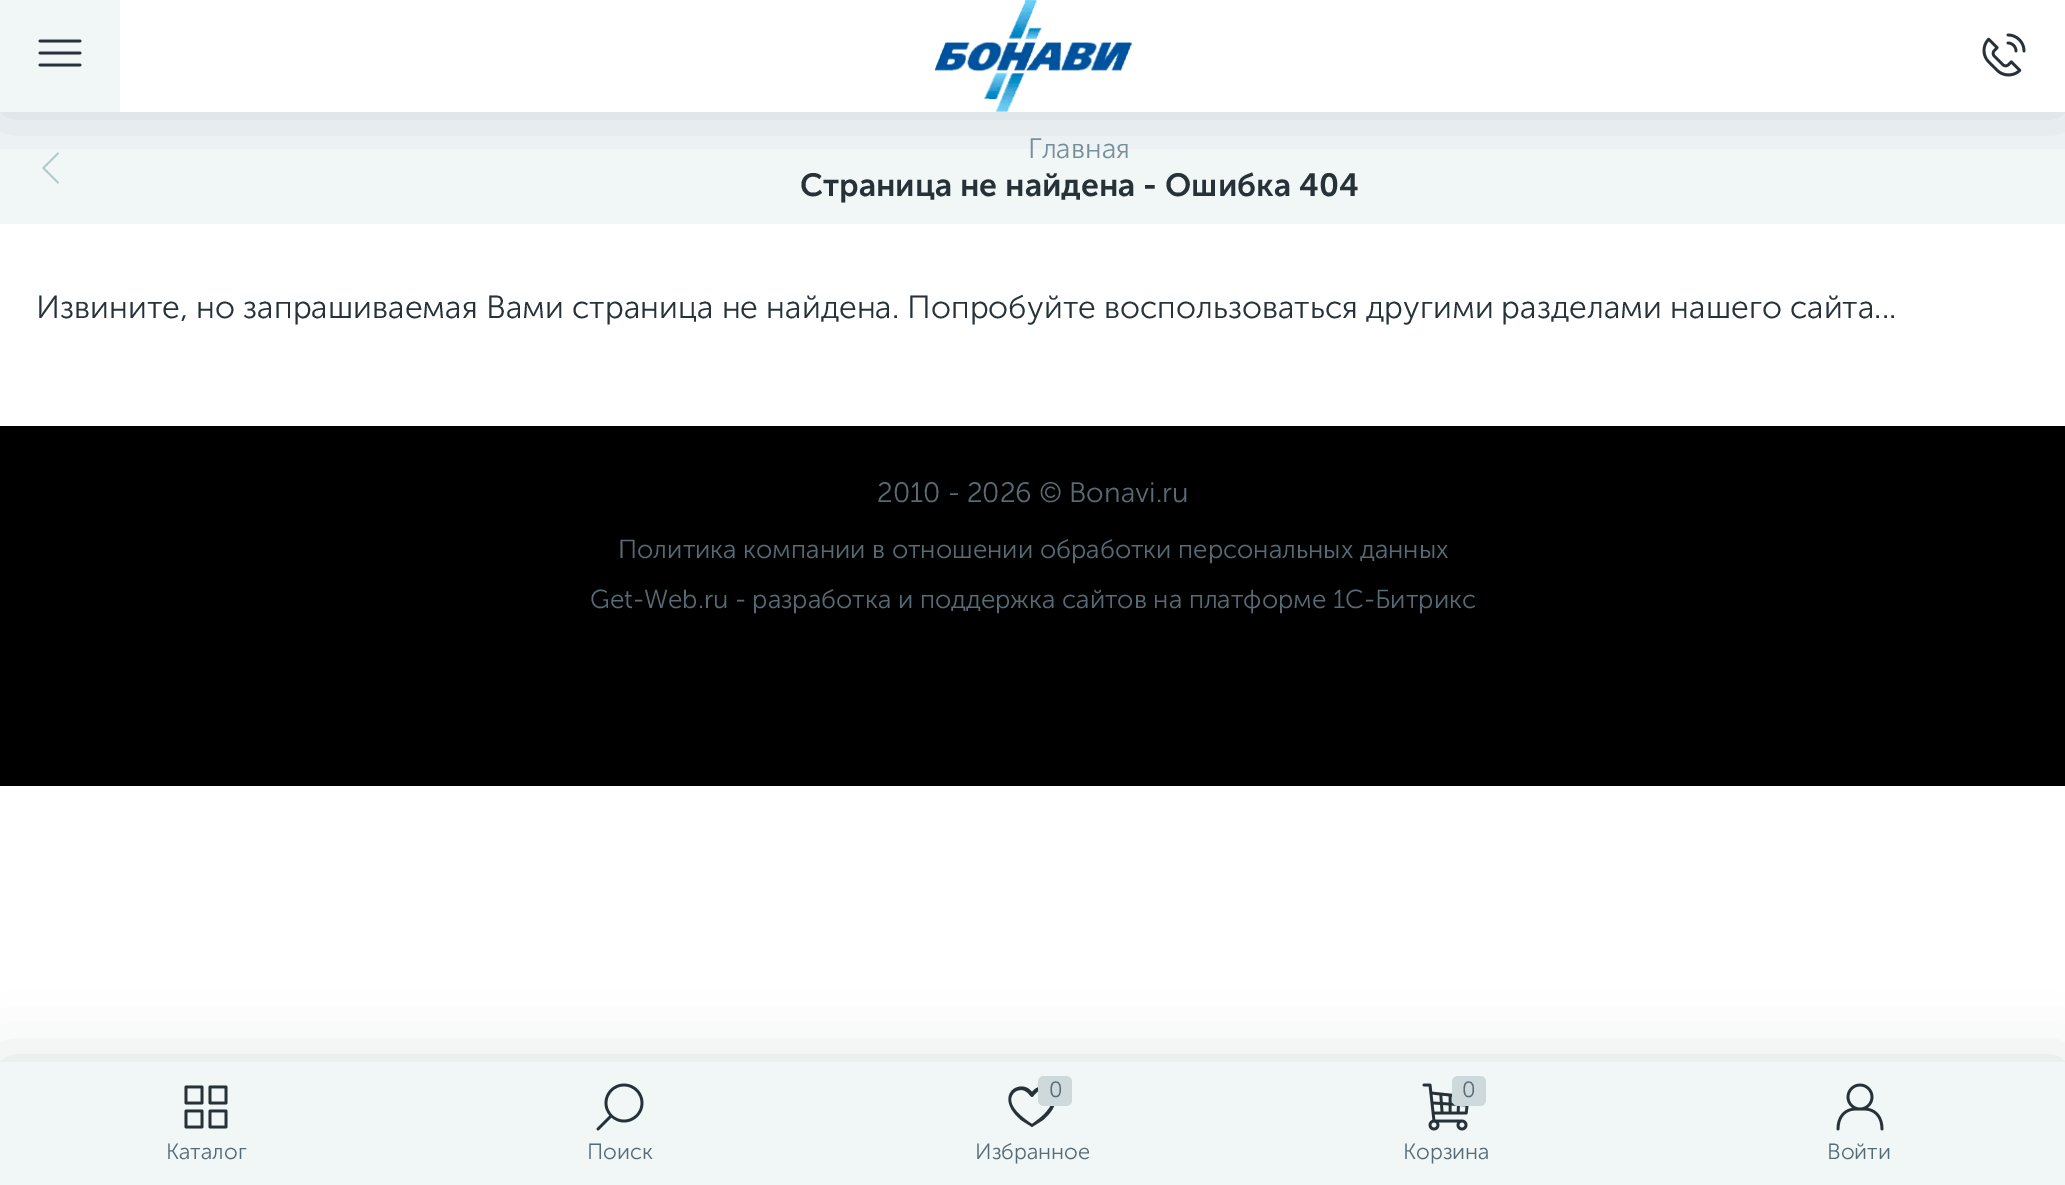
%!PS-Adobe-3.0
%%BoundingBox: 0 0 2065 1185
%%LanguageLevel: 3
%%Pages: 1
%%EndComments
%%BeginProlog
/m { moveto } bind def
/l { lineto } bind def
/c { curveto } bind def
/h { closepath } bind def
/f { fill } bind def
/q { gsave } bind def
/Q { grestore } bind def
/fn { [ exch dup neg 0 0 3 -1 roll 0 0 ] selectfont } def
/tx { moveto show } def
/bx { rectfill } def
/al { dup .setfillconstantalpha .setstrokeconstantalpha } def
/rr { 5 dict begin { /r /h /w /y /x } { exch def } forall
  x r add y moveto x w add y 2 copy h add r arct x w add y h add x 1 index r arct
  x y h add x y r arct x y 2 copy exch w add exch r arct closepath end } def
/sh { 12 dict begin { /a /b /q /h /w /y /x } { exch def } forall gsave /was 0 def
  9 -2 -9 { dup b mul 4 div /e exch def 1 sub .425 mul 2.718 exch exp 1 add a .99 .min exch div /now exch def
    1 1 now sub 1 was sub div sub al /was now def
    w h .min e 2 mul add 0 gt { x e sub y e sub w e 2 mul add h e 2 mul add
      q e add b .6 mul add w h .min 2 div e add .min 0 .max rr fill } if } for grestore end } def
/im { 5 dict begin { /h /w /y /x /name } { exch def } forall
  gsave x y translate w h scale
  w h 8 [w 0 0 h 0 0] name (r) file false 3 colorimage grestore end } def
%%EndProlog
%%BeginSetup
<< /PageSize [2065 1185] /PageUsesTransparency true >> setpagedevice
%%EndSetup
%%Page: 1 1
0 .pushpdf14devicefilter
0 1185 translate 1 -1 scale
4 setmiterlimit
1 setgray
0 0 2065 1185 bx
0.945 0.965 0.969 setrgbcolor
0 112 2065 112 bx
(image0.raw) 42 152 17 32 im
/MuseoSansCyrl-Light 28 fn
0.471 0.565 0.612 setrgbcolor
(Главная) 1028 158 tx
/MuseoSansCyrl-SemiBold 32 fn
0.149 0.196 0.22 setrgbcolor
(Страница не найдена - Ошибка 404) 800 196 tx
/MuseoSansCyrl-Light 32 fn
(Извините, но запрашиваемая Вами страница не найдена. Попробуйте воспользоваться другими разделами нашего сайта...) 36 318 tx
0 setgray
0 426 2065 360 bx
/MuseoSansCyrl-Light 28 fn
0.337 0.42 0.459 setrgbcolor
(2010 - 2026 © Bonavi.ru) 877 502 tx
/MuseoSansCyrl-Light 26 fn
(Политика компании в отношении обработки персональных данных) 618 558 tx
(Get-Web.ru - разработка и поддержка сайтов на платформе 1С-Битрикс) 590 608 tx
q
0 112 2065 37 rectclip
0.149 0.196 0.22 setrgbcolor
0 0 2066 112 0 32 0.16 sh
Q
0.945 0.965 0.969 setrgbcolor
0 0 120 112 bx
(image1.raw) 38 39 44 28 im
(image2.raw) 934 0 198 112 im
(image3.raw) 1982 33 44 44 im
0.149 0.196 0.22 setrgbcolor
0 1062 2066 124 0 32 0.16 sh
0.945 0.965 0.969 setrgbcolor
0 1062 2065 123 bx
(image4.raw) 184 1085 44 44 im
/MuseoSansCyrl-Light 22 fn
0.337 0.42 0.459 setrgbcolor
(Каталог) 166 1159 tx
(image5.raw) 596 1083 48 48 im
(Поиск) 587 1159 tx
0.149 0.196 0.22 setrgbcolor
1032 1127 m 1021 1120 l 992 1095 1021 1077 1032 1092 c 1043 1077 1072 1095 1043 1120 c h 1021 1090 m 1018 1090 1015 1091 1013 1094 c 1005 1105 1024 1119 1032 1124 c 1039 1119 1047 1113 1051 1105 c 1055 1097 1049 1088 1040 1090 c 1036 1092 1033 1097 1032 1097 c 1030 1097 1028 1090 1021 1090 c h f
0.808 0.851 0.859 setrgbcolor
1038 1076 34 30 6 rr f
0.337 0.42 0.459 setrgbcolor
(0) 1049 1097 tx
(Избранное) 975 1159 tx
(image6.raw) 1422 1083 47 48 im
0.808 0.851 0.859 setrgbcolor
1452 1076 34 30 6 rr f
0.337 0.42 0.459 setrgbcolor
(0) 1462 1097 tx
(Корзина) 1403 1159 tx
(image7.raw) 1836 1083 48 48 im
(Войти) 1827 1159 tx
.poppdf14devicefilter showpage
%%EOF
